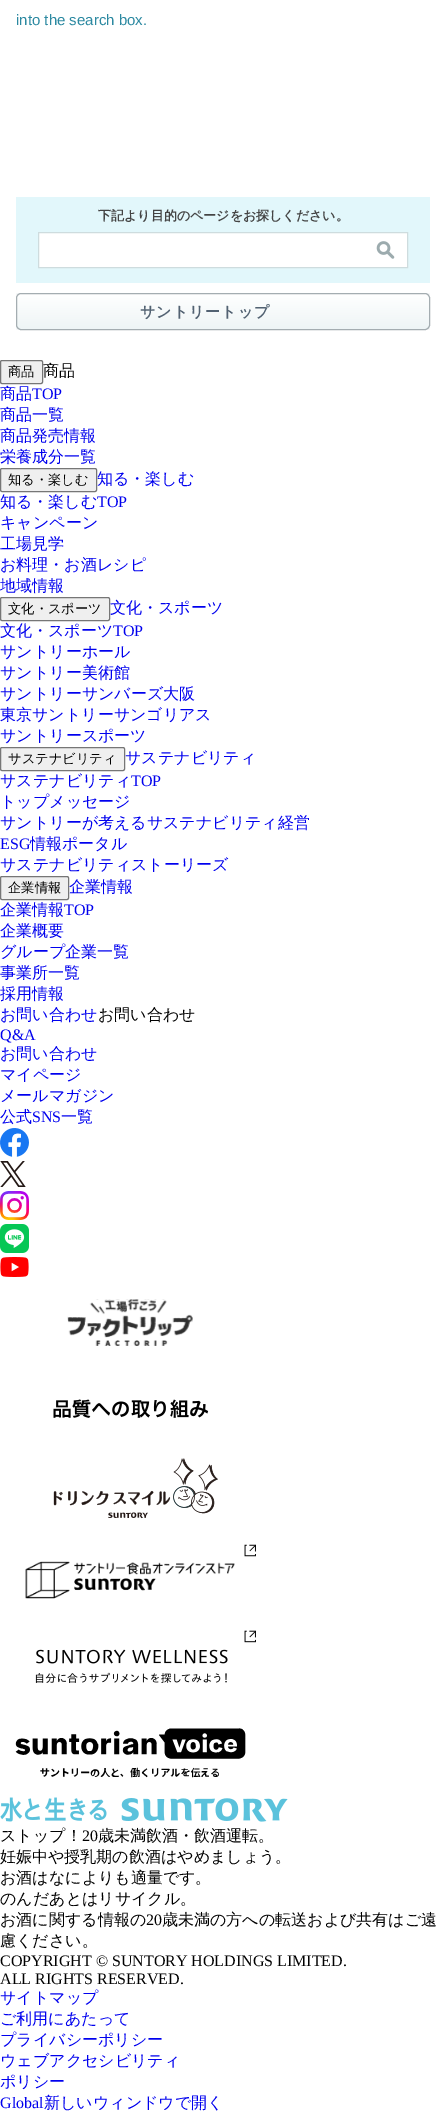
%!PS-Adobe-3.0
%%BoundingBox: 0 0 446 2114
%%LanguageLevel: 3
%%Pages: 1
%%EndComments
%%BeginProlog
/m { moveto } bind def
/l { lineto } bind def
/h { closepath } bind def
/f { fill } bind def
/S { stroke } bind def
/q { gsave } bind def
/Q { grestore } bind def
/fn { [ exch dup neg 0 0 3 -1 roll 0 0 ] selectfont } def
/tx { moveto show } def
/bx { rectfill } def
/al { dup .setfillconstantalpha .setstrokeconstantalpha } def
/rr { 5 dict begin { /r /h /w /y /x } { exch def } forall
  x r add y moveto x w add y 2 copy h add r arct x w add y h add x 1 index r arct
  x y h add x y r arct x y 2 copy exch w add exch r arct closepath end } def
/sh { 12 dict begin { /a /b /q /h /w /y /x } { exch def } forall gsave /was 0 def
  9 -2 -9 { dup b mul 4 div /e exch def 1 sub .425 mul 2.718 exch exp 1 add a .99 .min exch div /now exch def
    1 1 now sub 1 was sub div sub al /was now def
    w h .min e 2 mul add 0 gt { x e sub y e sub w e 2 mul add h e 2 mul add
      q e add b .6 mul add w h .min 2 div e add .min 0 .max rr fill } if } for grestore end } def
/im { 5 dict begin { /h /w /y /x /name } { exch def } forall
  gsave x y translate w h scale
  w h 8 [w 0 0 h 0 0] name (r) file false 3 colorimage grestore end } def
%%EndProlog
%%BeginSetup
<< /PageSize [446 2114] /PageUsesTransparency true >> setpagedevice
%%EndSetup
%%Page: 1 1
0 .pushpdf14devicefilter
0 2114 translate 1 -1 scale
4 setmiterlimit
1 setgray
0 0 446 2114 bx
/LiberationSans-Regular 15 fn
0.173 0.537 0.631 setrgbcolor
(into the search box.) 16 25 tx
0.886 0.969 0.984 setrgbcolor
16 197 414 86 bx
/WenQuanYiZenHei-Bold 13 fn
0.267 setgray
(下記より目的のページをお探しください。) 98 220 tx
1 setgray
38.5 232.5 m 407.5 232.5 l 407.5 267.5 l 38.5 267.5 l h q f Q
0.808 0.863 0.871 setrgbcolor
S
(image0.raw) 376 241 19 18 im
q
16 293 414 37 rectclip
0.906 0.929 0.937 setrgbcolor
15 292 416 39 6 2 1 sh
Q
q
16 293 414 37 5 rr clip newpath
q 16 294 m 430 294 l 430 329 l 16 329 l h clip newpath
<< /ShadingType 2 /ColorSpace /DeviceRGB /Coords [223 294 223 329] /Extend [true true] /Function << /FunctionType 2 /Domain [0 1] /C0 [1 1 1] /C1 [0.933 0.961 0.965] /N 1 >> >> shfill Q
Q
0.643 0.678 0.694 setrgbcolor
16.5 293.5 413 36 4.5 rr S
/WenQuanYiZenHei-Bold 15 fn
0.322 0.384 0.447 setrgbcolor
140 317 m 1 0 (サントリートップ) ashow
0.937 setgray
0.5 360.5 42 23 1.5 rr q f Q
0.463 setgray
S
/WenQuanYiZenHei-Medium 13.25 fn
0 setgray
(商品) 8 376 tx
/WenQuanYiZenHei-Medium 16 fn
(商品) 43 376 tx
0 0 0.933 setrgbcolor
(商品) 0 399 tx
/LiberationSerif-Regular 16 fn
(TOP) 32 399 tx
/WenQuanYiZenHei-Medium 16 fn
(商品一覧) 0 420 tx
(商品発売情報) 0 441 tx
(栄養成分一覧) 0 462 tx
0.937 setgray
0.5 468.5 96 23 1.5 rr q f Q
0.463 setgray
S
/WenQuanYiZenHei-Medium 13.25 fn
0 setgray
(知る・楽しむ) 8 484 tx
/WenQuanYiZenHei-Medium 16 fn
0 0 0.933 setrgbcolor
(知る・楽しむ) 97 484 tx
(知る・楽しむ) 0 507 tx
/LiberationSerif-Regular 16 fn
(TOP) 97 507 tx
/WenQuanYiZenHei-Medium 16 fn
(キャンペーン) 0 528 tx
(工場見学) 0 549 tx
(お料理・お酒レシピ) 0 570 tx
(地域情報) 0 591 tx
0.937 setgray
0.5 597.5 109 23 1.5 rr q f Q
0.463 setgray
S
/WenQuanYiZenHei-Medium 13.25 fn
0 setgray
(文化・スポーツ) 8 613 tx
/WenQuanYiZenHei-Medium 16 fn
0 0 0.933 setrgbcolor
(文化・スポーツ) 110 613 tx
(文化・スポーツ) 0 636 tx
/LiberationSerif-Regular 16 fn
(TOP) 113 636 tx
/WenQuanYiZenHei-Medium 16 fn
(サントリーホール) 0 657 tx
(サントリー美術館) 0 678 tx
(サントリーサンバーズ大阪) 0 699 tx
(東京サントリーサンゴリアス) 0 720 tx
(サントリースポーツ) 0 741 tx
0.937 setgray
0.5 747.5 124 23 1.5 rr q f Q
0.463 setgray
S
/WenQuanYiZenHei-Medium 13.25 fn
0 setgray
(サステナビリティ) 8 763 tx
/WenQuanYiZenHei-Medium 16 fn
0 0 0.933 setrgbcolor
(サステナビリティ) 125 763 tx
(サステナビリティ) 0 786 tx
/LiberationSerif-Regular 16 fn
(TOP) 131 786 tx
/WenQuanYiZenHei-Medium 16 fn
(トップメッセージ) 0 807 tx
(サントリーが考えるサステナビリティ経営) 0 828 tx
/LiberationSerif-Regular 16 fn
(ESG) 0 849 tx
/WenQuanYiZenHei-Medium 16 fn
(情報ポータル) 30 849 tx
(サステナビリティストーリーズ) 0 870 tx
0.937 setgray
0.5 876.5 68 23 1.5 rr q f Q
0.463 setgray
S
/WenQuanYiZenHei-Medium 13.25 fn
0 setgray
(企業情報) 8 892 tx
/WenQuanYiZenHei-Medium 16 fn
0 0 0.933 setrgbcolor
(企業情報) 69 892 tx
(企業情報) 0 915 tx
/LiberationSerif-Regular 16 fn
(TOP) 64 915 tx
/WenQuanYiZenHei-Medium 16 fn
(企業概要) 0 936 tx
(グループ企業一覧) 0 957 tx
(事業所一覧) 0 978 tx
(採用情報) 0 999 tx
(お問い合わせ) 0 1020 tx
0 setgray
(お問い合わせ) 98 1020 tx
/LiberationSerif-Regular 16 fn
0 0 0.933 setrgbcolor
(Q&A) 0 1040 tx
/WenQuanYiZenHei-Medium 16 fn
(お問い合わせ) 0 1059 tx
(マイページ) 0 1080 tx
(メールマガジン) 0 1101 tx
(公式) 0 1122 tx
/LiberationSerif-Regular 16 fn
(SNS) 32 1122 tx
/WenQuanYiZenHei-Medium 16 fn
(一覧) 61 1122 tx
(image1.raw) 0 1128 29 29 im
(image2.raw) 0 1161 26 26 im
(image3.raw) 0 1191 29 29 im
(image4.raw) 0 1224 29 29 im
(image5.raw) 0 1257 29 20 im
(image6.raw) 67 1299 126 47 im
(image7.raw) 53 1399 156 19 im
(image8.raw) 53 1458 165 61 im
(image9.raw) 25 1544 231 55 im
(image10.raw) 35 1630 221 53 im
(image11.raw) 15 1728 231 50 im
(image12.raw) 0 1797 288 25 im
0 setgray
(ストップ！) 0 1841 tx
/LiberationSerif-Regular 16 fn
(20) 82 1841 tx
/WenQuanYiZenHei-Medium 16 fn
(歳未満飲酒・飲酒運転。) 98 1841 tx
(妊娠中や授乳期の飲酒はやめましょう。) 0 1862 tx
(お酒はなによりも適量です。) 0 1883 tx
(のんだあとはリサイクル。) 0 1904 tx
(お酒に関する情報の) 0 1925 tx
/LiberationSerif-Regular 16 fn
(20) 146 1925 tx
/WenQuanYiZenHei-Medium 16 fn
(歳未満の方への転送および共有はご遠) 162 1925 tx
(慮ください。) 0 1946 tx
/LiberationSerif-Regular 16 fn
(COPYRIGHT © SUNTORY HOLDINGS LIMITED.) 0 1966 tx
(ALL RIGHTS RESERVED.) 0 1984 tx
/WenQuanYiZenHei-Medium 16 fn
0 0 0.933 setrgbcolor
(サイトマップ) 0 2003 tx
(ご利用にあたって) 0 2024 tx
(プライバシーポリシー) 0 2045 tx
(ウェブアクセシビリティ) 0 2066 tx
(ポリシー) 0 2087 tx
/LiberationSerif-Regular 16 fn
(Global) 0 2108 tx
/WenQuanYiZenHei-Medium 16 fn
(新しいウィンドウで開く) 44 2108 tx
.poppdf14devicefilter showpage
%%EOF
